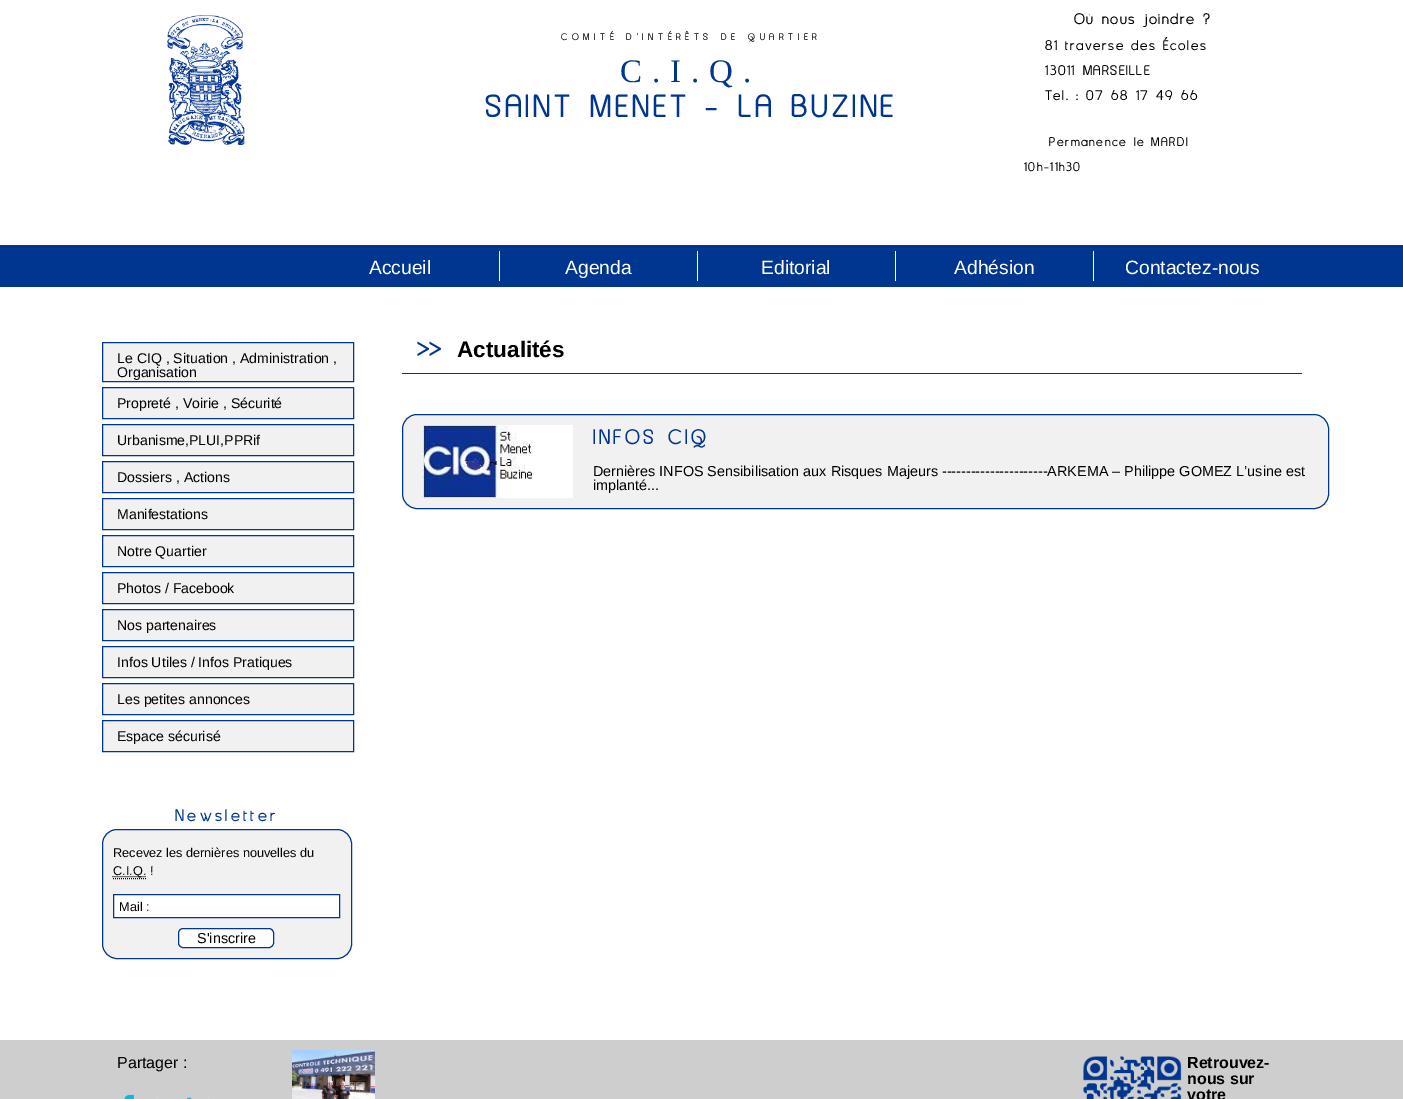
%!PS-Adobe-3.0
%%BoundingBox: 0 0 1403 1099
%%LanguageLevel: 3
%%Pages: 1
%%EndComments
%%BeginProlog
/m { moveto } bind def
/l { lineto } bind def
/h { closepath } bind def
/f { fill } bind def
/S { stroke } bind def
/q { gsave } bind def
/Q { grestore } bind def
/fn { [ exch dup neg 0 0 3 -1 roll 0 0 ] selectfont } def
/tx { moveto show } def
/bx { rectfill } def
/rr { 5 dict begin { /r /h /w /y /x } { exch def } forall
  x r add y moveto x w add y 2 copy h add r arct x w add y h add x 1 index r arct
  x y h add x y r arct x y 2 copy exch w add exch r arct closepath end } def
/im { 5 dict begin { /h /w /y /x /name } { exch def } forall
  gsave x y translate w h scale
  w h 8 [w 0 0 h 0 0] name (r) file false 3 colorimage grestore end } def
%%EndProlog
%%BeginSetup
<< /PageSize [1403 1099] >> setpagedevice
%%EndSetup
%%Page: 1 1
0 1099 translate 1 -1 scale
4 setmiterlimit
1 setgray
0 0 1403 1099 bx
(image0.raw) 167 15 78 130 im
/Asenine-Bold 11 fn
0 setgray
561 40 m 5 0 (COMITÉ D'INTÉRÊTS DE QUARTIER) ashow
/LiberationSerif-Regular 33 fn
0 0.212 0.565 setrgbcolor
620 82 m 10 0 (C.I.Q.) ashow
/Asenine-Bold 36.75 fn
485 117 m 5 0 (SAINT MENET - LA BUZINE) ashow
/Asenine-Bold 17.5 fn
0 setgray
1074 24 m 2 0 (Où nous joindre ?) ashow
/Asenine-Bold 16 fn
1045 50 m 2 0 (81 traverse des Écoles) ashow
1045 75 m 2 0 (13011 MARSEILLE) ashow
1045 100 m 2 0 (Tel. : 07 68 17 49 66) ashow
/Asenine-Bold 14.4 fn
1049 146 m 2 0 (Permanence le MARDI) ashow
1024 171 m 2 0 (10h-11h30) ashow
0 0.212 0.565 setrgbcolor
0 245 1403 42 bx
/LiberationSans-Regular 19.25 fn
1 setgray
(Accueil) 369 274 tx
499 251 1 30 bx
(Agenda) 565 274 tx
697 251 1 30 bx
(Editorial) 761 274 tx
895 251 1 30 bx
(Adhésion) 954 274 tx
1093 251 1 30 bx
(Contactez-nous) 1125 274 tx
0.945 setgray
102.5 342.5 m 353.5 342.5 l 353.5 381.5 l 102.5 381.5 l h q f Q
0 0.212 0.565 setrgbcolor
S
/LiberationSans-Regular 14.1 fn
0 setgray
(Le CIQ , Situation , Administration ,) 117 363 tx
(Organisation) 117 377 tx
0.945 setgray
102.5 387.5 m 353.5 387.5 l 353.5 418.5 l 102.5 418.5 l h q f Q
0 0.212 0.565 setrgbcolor
S
0 setgray
(Propreté , Voirie , Sécurité) 117 408 tx
0.945 setgray
102.5 424.5 m 353.5 424.5 l 353.5 455.5 l 102.5 455.5 l h q f Q
0 0.212 0.565 setrgbcolor
S
0 setgray
(Urbanisme,PLUI,PPRif) 117 445 tx
0.945 setgray
102.5 461.5 m 353.5 461.5 l 353.5 492.5 l 102.5 492.5 l h q f Q
0 0.212 0.565 setrgbcolor
S
0 setgray
(Dossiers , Actions) 117 482 tx
0.945 setgray
102.5 498.5 m 353.5 498.5 l 353.5 529.5 l 102.5 529.5 l h q f Q
0 0.212 0.565 setrgbcolor
S
0 setgray
(Manifestations) 117 519 tx
0.945 setgray
102.5 535.5 m 353.5 535.5 l 353.5 566.5 l 102.5 566.5 l h q f Q
0 0.212 0.565 setrgbcolor
S
0 setgray
(Notre Quartier) 117 556 tx
0.945 setgray
102.5 572.5 m 353.5 572.5 l 353.5 603.5 l 102.5 603.5 l h q f Q
0 0.212 0.565 setrgbcolor
S
0 setgray
(Photos / Facebook) 117 593 tx
0.945 setgray
102.5 609.5 m 353.5 609.5 l 353.5 640.5 l 102.5 640.5 l h q f Q
0 0.212 0.565 setrgbcolor
S
0 setgray
(Nos partenaires) 117 630 tx
0.945 setgray
102.5 646.5 m 353.5 646.5 l 353.5 677.5 l 102.5 677.5 l h q f Q
0 0.212 0.565 setrgbcolor
S
0 setgray
(Infos Utiles / Infos Pratiques) 117 667 tx
0.945 setgray
102.5 683.5 m 353.5 683.5 l 353.5 714.5 l 102.5 714.5 l h q f Q
0 0.212 0.565 setrgbcolor
S
0 setgray
(Les petites annonces) 117 704 tx
0.945 setgray
102.5 720.5 m 353.5 720.5 l 353.5 751.5 l 102.5 751.5 l h q f Q
0 0.212 0.565 setrgbcolor
S
0 setgray
(Espace sécurisé) 117 741 tx
/Asenine-Bold 19.25 fn
0 0.212 0.565 setrgbcolor
175 821 m 4 0 (Newsletter) ashow
0.945 setgray
102.5 829.5 249 129 14.5 rr q f Q
0 0.212 0.565 setrgbcolor
S
/LiberationSans-Regular 12.75 fn
0 setgray
(Recevez les dernières nouvelles du) 113 857 tx
[1 1] 0 setdash
113 878.5 m 146 878.5 l 112.5 876.5 m 146 876.5 l S
(C.I.Q. !) 113 875 tx
1 setgray
113.5 894.5 m 339.5 894.5 l 339.5 917.5 l 113.5 917.5 l h q f Q
0 0.212 0.565 setrgbcolor
[] 0 setdash
S
0 setgray
(Mail :) 119 911 tx
1 setgray
178.5 928.5 95 19 4.5 rr q f Q
0 0.212 0.565 setrgbcolor
S
/LiberationSans-Regular 14.4 fn
0 setgray
(S'inscrire) 197 943 tx
0 0.212 0.565 setrgbcolor
402 373 900 1 bx
/Asenine-Bold 31 fn
(>>) 417 357 tx
/LiberationSans-Bold 22.5 fn
0 setgray
(Actualités) 457 357 tx
0.945 setgray
402.5 414.5 926 94 14.5 rr q f Q
0 0.212 0.565 setrgbcolor
S
(image1.raw) 423 425 150 73 im
/Asenine-Bold 24 fn
593 444 m 4 0 (INFOS CIQ) ashow
/LiberationSans-Regular 14.4 fn
0 setgray
(Dernières INFOS Sensibilisation aux Risques Majeurs ----------------------ARKEMA – Philippe GOMEZ L’usine est) 593 476 tx
(implanté...) 593 490 tx
0.808 setgray
0 1040 1403 59 bx
/LiberationSans-Regular 16 fn
0 setgray
(Partager :) 117 1068 tx
(image2.raw) 124 1094 10 5 im
0.827 setgray
157 1096 1 3 bx
(image3.raw) 186 1097 6 2 im
208 1096 1 3 bx
(image4.raw) 292 1050 83 49 im
(image5.raw) 1083 1056 99 43 im
/LiberationSans-Bold 16 fn
0 setgray
(Retrouvez-) 1187 1068 tx
(nous sur) 1187 1084 tx
(votre) 1187 1100 tx
showpage
%%EOF
